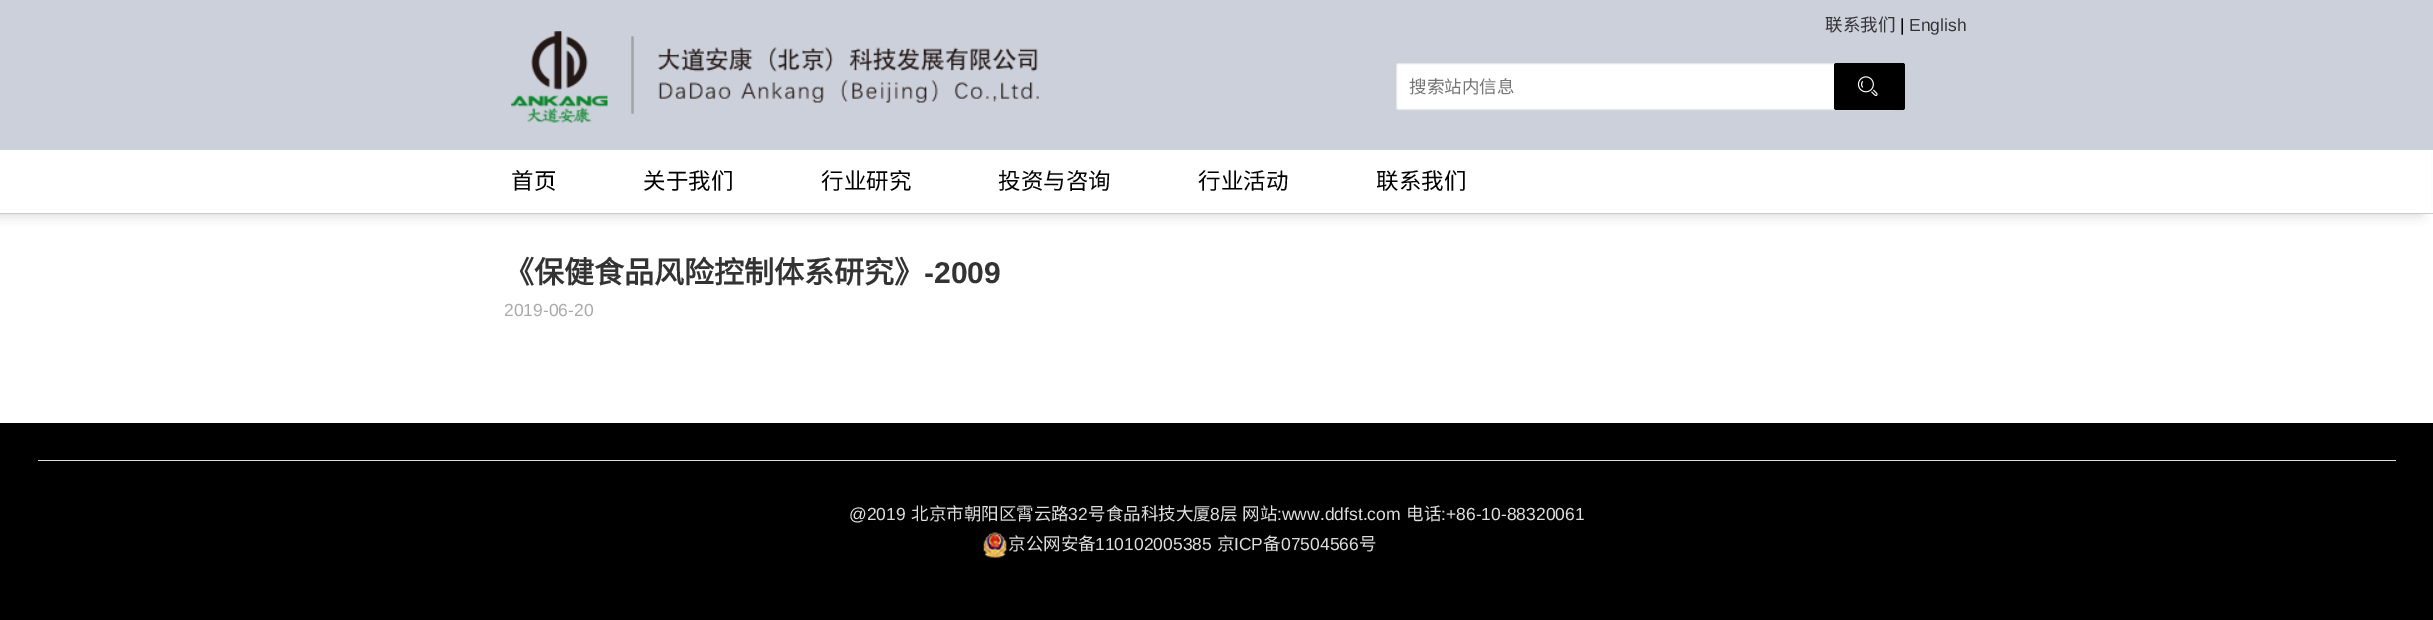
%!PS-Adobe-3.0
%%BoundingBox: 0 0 2433 620
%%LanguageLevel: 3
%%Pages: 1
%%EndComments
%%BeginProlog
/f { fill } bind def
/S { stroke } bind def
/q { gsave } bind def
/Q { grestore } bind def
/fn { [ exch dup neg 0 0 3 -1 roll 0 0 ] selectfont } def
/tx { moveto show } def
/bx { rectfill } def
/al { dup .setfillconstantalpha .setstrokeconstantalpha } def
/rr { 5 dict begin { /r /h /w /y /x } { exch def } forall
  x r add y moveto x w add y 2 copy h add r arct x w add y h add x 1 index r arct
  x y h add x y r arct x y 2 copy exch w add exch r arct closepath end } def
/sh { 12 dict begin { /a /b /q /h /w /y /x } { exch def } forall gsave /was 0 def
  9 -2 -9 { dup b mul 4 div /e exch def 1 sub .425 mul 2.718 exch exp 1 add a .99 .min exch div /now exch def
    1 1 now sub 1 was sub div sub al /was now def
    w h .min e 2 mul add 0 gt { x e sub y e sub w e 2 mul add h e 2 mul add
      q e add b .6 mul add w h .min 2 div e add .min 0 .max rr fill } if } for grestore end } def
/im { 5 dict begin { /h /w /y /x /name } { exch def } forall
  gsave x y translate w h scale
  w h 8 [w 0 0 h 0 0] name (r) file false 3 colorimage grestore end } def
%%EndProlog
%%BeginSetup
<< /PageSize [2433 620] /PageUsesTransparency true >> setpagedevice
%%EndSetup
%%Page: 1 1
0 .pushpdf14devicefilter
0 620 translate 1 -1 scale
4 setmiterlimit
1 setgray
0 0 2433 620 bx
0.8 setgray
-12 0 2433 214 0 6 1 sh
0.8 0.816 0.859 setrgbcolor
0 0 2433 150 bx
0.8 setgray
0 213 2433 1 bx
(image0.raw) 511 31 528 92 im
/NotoSansCJKSC-Regular 17.5 fn
0.2 setgray
(联系我们) 1825 31 tx
/LiberationSans-Regular 17.5 fn
0 setgray
(|) 1900 31 tx
0.2 setgray
(English) 1909 31 tx
1 setgray
1396.5 63.5 499 46 2 rr q f Q
0.902 setgray
S
/NotoSansCJKSC-Regular 17.5 fn
0.459 setgray
(搜索站内信息) 1409 93 tx
0 setgray
1834 63 71 47 2.5 rr f
(image1.raw) 1857 76 21 21 im
1 setgray
0 150 2431 63 bx
/NotoSansCJKSC-Regular 22.5 fn
0 setgray
(首页) 511 189 tx
(关于我们) 643 189 tx
(行业研究) 821 189 tx
(投资与咨询) 998 189 tx
(行业活动) 1198 189 tx
(联系我们) 1376 189 tx
/NotoSansCJKSC-Bold 30 fn
0.2 setgray
(《保健食品风险控制体系研究》) 504 283 tx
/LiberationSans-Bold 30 fn
(-2009) 924 283 tx
/LiberationSans-Regular 17.5 fn
0.667 setgray
(2019-06-20) 504 316 tx
0 setgray
0 423 2433 197 bx
0.871 setgray
38 460 2358 1 bx
(@2019) 849 520 tx
/NotoSansCJKSC-Regular 17.5 fn
(北京市朝阳区霄云路) 911 520 tx
/LiberationSans-Regular 17.5 fn
(32) 1068 520 tx
/NotoSansCJKSC-Regular 17.5 fn
(号食品科技大厦) 1088 520 tx
/LiberationSans-Regular 17.5 fn
(8) 1210 520 tx
/NotoSansCJKSC-Regular 17.5 fn
(层) 1220 520 tx
(网站) 1242 520 tx
/LiberationSans-Regular 17.5 fn
(:www.ddfst.com) 1277 520 tx
/NotoSansCJKSC-Regular 17.5 fn
(电话) 1406 520 tx
/LiberationSans-Regular 17.5 fn
(:+86-10-88320061) 1441 520 tx
(image2.raw) 983 532 24 26 im
/NotoSansCJKSC-Regular 17.5 fn
(京公网安备) 1008 550 tx
/LiberationSans-Regular 17.5 fn
(110102005385) 1095 550 tx
/NotoSansCJKSC-Regular 17.5 fn
(京) 1217 550 tx
/LiberationSans-Regular 17.5 fn
(ICP) 1234 550 tx
/NotoSansCJKSC-Regular 17.5 fn
(备) 1263 550 tx
/LiberationSans-Regular 17.5 fn
(07504566) 1281 550 tx
/NotoSansCJKSC-Regular 17.5 fn
(号) 1359 550 tx
.poppdf14devicefilter showpage
%%EOF
